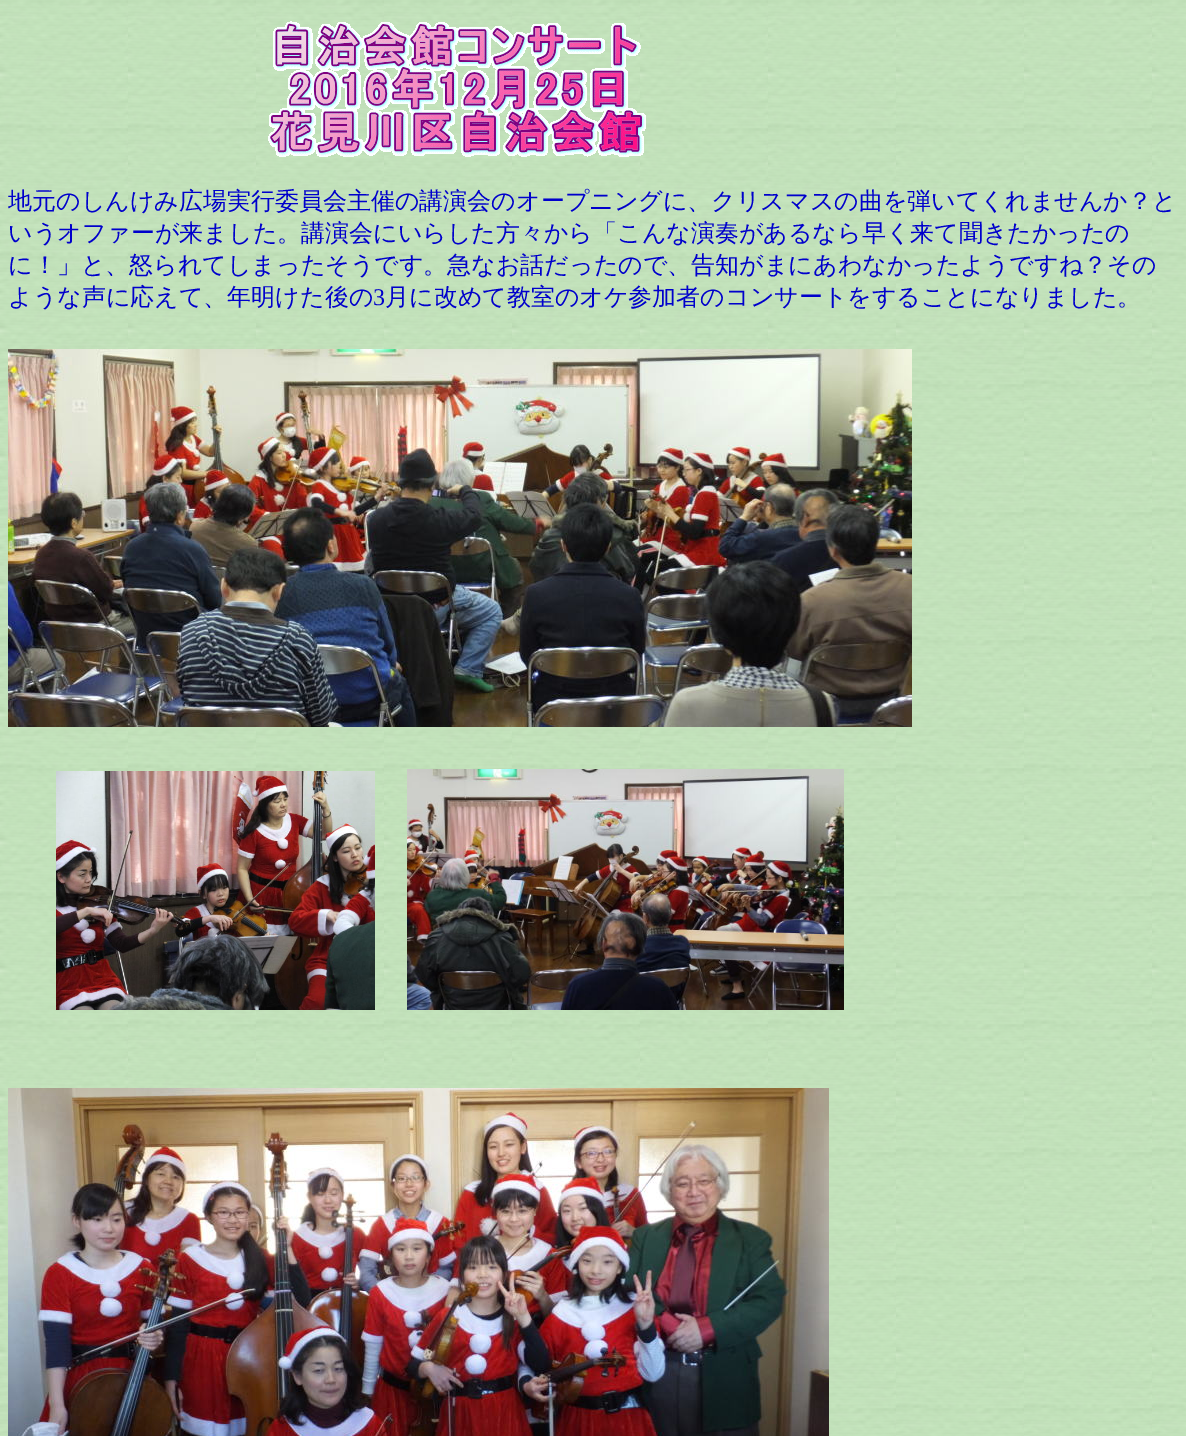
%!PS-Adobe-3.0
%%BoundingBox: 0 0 1186 1436
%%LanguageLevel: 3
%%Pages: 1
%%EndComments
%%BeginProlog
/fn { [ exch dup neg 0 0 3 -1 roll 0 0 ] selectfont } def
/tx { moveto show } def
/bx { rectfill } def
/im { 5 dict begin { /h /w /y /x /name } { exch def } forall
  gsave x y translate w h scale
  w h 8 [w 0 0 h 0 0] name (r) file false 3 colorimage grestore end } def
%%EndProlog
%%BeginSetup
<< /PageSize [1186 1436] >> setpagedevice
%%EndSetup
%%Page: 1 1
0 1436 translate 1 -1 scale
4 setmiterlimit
1 setgray
0 0 1186 1436 bx
(image0.raw) 0 0 1186 1436 im
(image1.raw) 268 21 378 136 im
/WenQuanYiZenHei-Medium 24 fn
0 0 0.8 setrgbcolor
(地元のしんけみ広場実行委員会主催の講演会のオープニングに、クリスマスの曲を弾いてくれませんか？と) 8 209 tx
(いうオファーが来ました。講演会にいらした方々から「こんな演奏があるなら早く来て聞きたかったの) 8 241 tx
(に！」と、怒られてしまったそうです。急なお話だったので、告知がまにあわなかったようですね？その) 8 273 tx
(ような声に応えて、年明けた後の) 8 305 tx
/LiberationSerif-Regular 24 fn
(3) 373 305 tx
/WenQuanYiZenHei-Medium 24 fn
(月に改めて教室のオケ参加者のコンサートをすることになりました。) 385 305 tx
(image2.raw) 8 349 904 378 im
(image3.raw) 56 771 319 239 im
(image4.raw) 407 769 437 241 im
(image5.raw) 8 1088 821 348 im
showpage
%%EOF
